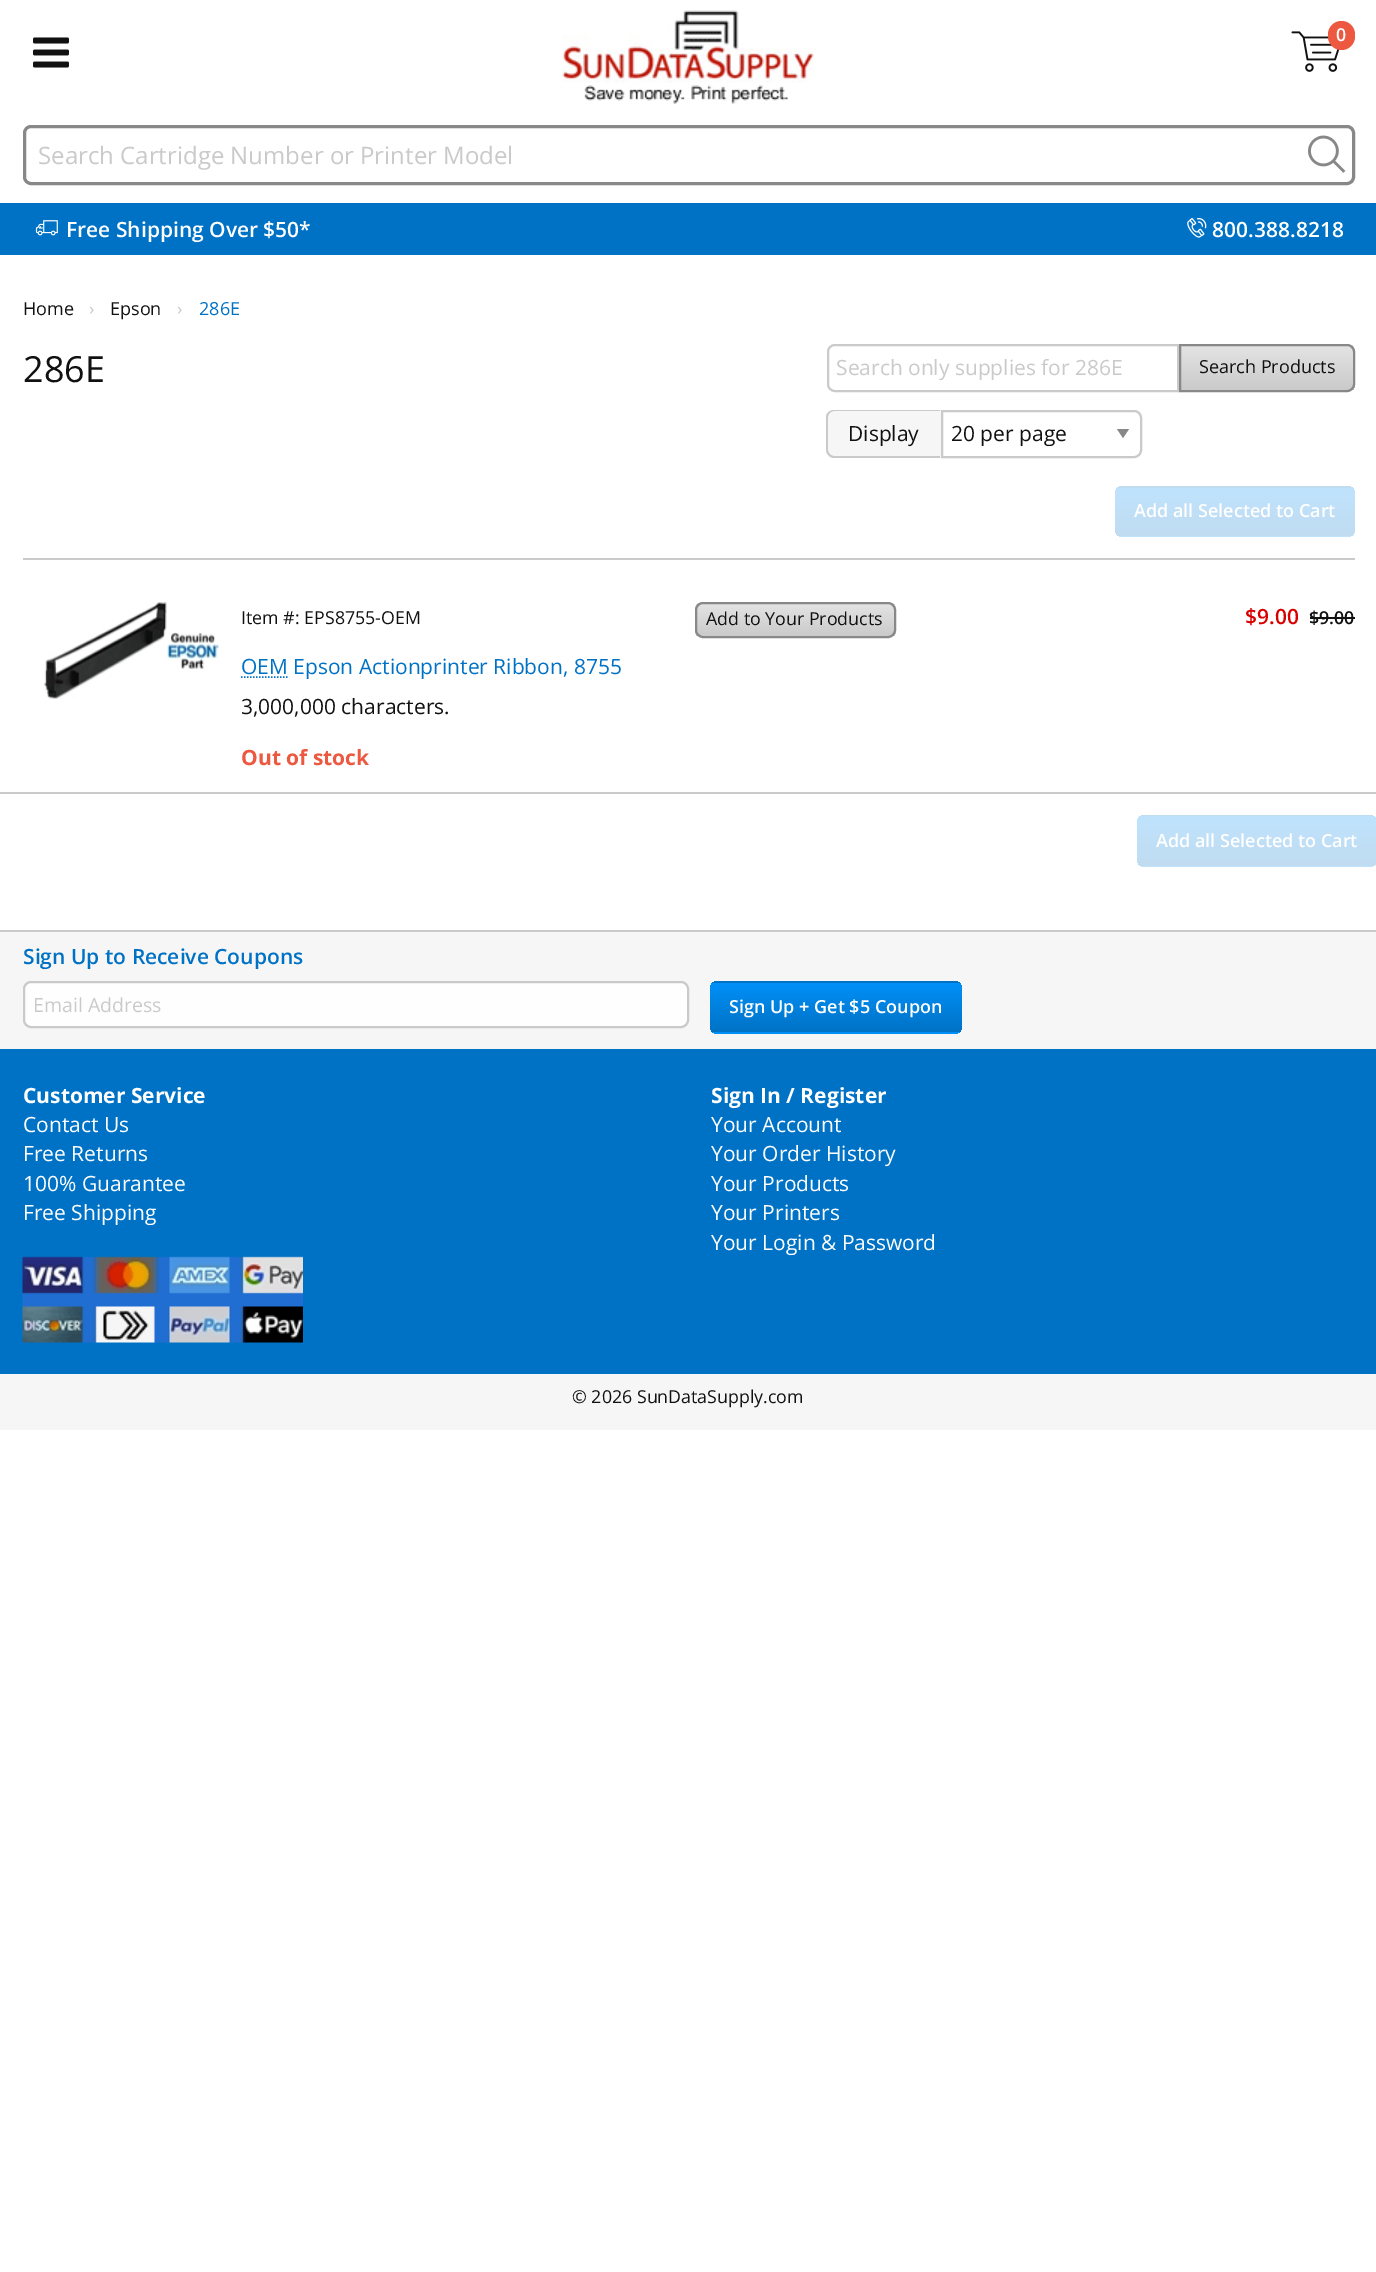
%!PS-Adobe-3.0
%%BoundingBox: 0 0 1376 2272
%%LanguageLevel: 3
%%Pages: 1
%%EndComments
%%BeginProlog
/m { moveto } bind def
/l { lineto } bind def
/c { curveto } bind def
/h { closepath } bind def
/f { fill } bind def
/S { stroke } bind def
/q { gsave } bind def
/Q { grestore } bind def
/w { setlinewidth } bind def
/fn { [ exch dup neg 0 0 3 -1 roll 0 0 ] selectfont } def
/tx { moveto show } def
/bx { rectfill } def
/rr { 5 dict begin { /r /h /w /y /x } { exch def } forall
  x r add y moveto x w add y 2 copy h add r arct x w add y h add x 1 index r arct
  x y h add x y r arct x y 2 copy exch w add exch r arct closepath end } def
/im { 5 dict begin { /h /w /y /x /name } { exch def } forall
  gsave x y translate w h scale
  w h 8 [w 0 0 h 0 0] name (r) file false 3 colorimage grestore end } def
%%EndProlog
%%BeginSetup
<< /PageSize [1376 2272] >> setpagedevice
%%EndSetup
%%Page: 1 1
0 2272 translate 1 -1 scale
4 setmiterlimit
1 setgray
0 0 1376 2272 bx
(image0.raw) 562 10 253 94 im
(image1.raw) 1291 31 49 41 im
0.925 0.345 0.251 setrgbcolor
1328 21 27 29 13.5 rr f
/OpenSans-SemiBold 17.8 fn
1 setgray
(0) 1336 41 tx
(image2.raw) 33 37 36 31 im
0.533 setgray
3 w
24.5 126.5 1329 57 6.5 rr S
/OpenSans-Regular 24 fn
0.792 setgray
(Search Cartridge Number or Printer Model) 38 164 tx
(image3.raw) 1308 135 38 38 im
0 0.447 0.773 setrgbcolor
0 203 1376 52 bx
(image4.raw) 35 220 23 16 im
/OpenSans-SemiBold 21 fn
1 setgray
(Free Shipping Over $50*) 66 237 tx
(image5.raw) 1187 218 20 20 im
(800.388.8218) 1212 237 tx
/OpenSans-Regular 18 fn
0.067 setgray
(Home) 23 315 tx
0.792 setgray
(›) 89 315 tx
0.067 setgray
(Epson) 110 315 tx
0.792 setgray
(›) 177 315 tx
0 0.447 0.773 setrgbcolor
(286E) 199 315 tx
0.792 setgray
23 558 1332 2 bx
/OpenSans-Regular 36 fn
0.067 setgray
(286E) 23 382 tx
0.792 setgray
2 w
835 345 m 1178 345 l 1178 391 l 835 391 l 831 391 828 388 828 384 c 828 352 l 828 348 831 345 835 345 c h S
/OpenSans-Regular 21 fn
(Search only supplies for 286E) 836 375 tx
q
1179 344 m 1347 344 l 1351.5 344 1355 347.5 1355 352 c 1355 384 l 1355 388.5 1351.5 392 1347 392 c 1179 392 l h clip newpath
q 1181 345 m 1355 345 l 1355 390 l 1181 390 l h clip newpath
<< /ShadingType 2 /ColorSpace /DeviceRGB /Coords [1267 345 1267 390] /Extend [true true] /Function << /FunctionType 2 /Domain [0 1] /C0 [0.894 0.894 0.894] /C1 [0.792 0.792 0.792] /N 1 >> >> shfill Q
Q
0.533 setgray
1180 345 m 1347 345 l 1351 345 1354 348 1354 352 c 1354 384 l 1354 388 1351 391 1347 391 c 1180 391 l h S
/OpenSans-Regular 18 fn
0.067 setgray
(Search Products) 1199 373 tx
0.965 setgray
835 410 m 941 410 l 941 458 l 835 458 l 830.5 458 827 454.5 827 450 c 827 418 l 827 413.5 830.5 410 835 410 c h f
0.792 setgray
834 410 m 940 410 l 940 458 l 834 458 l 830 458 826 454 826 450 c 826 417 l 826 413 830 410 834 410 c h 834 411 m 940 411 l 940 456 l 834 456 l 831 456 828 453 828 450 c 828 417 l 828 414 831 411 834 411 c h eofill
/OpenSans-Regular 21 fn
0.067 setgray
(Display) 848 441 tx
0.533 setgray
1117 429 m 1129 429 l 1123 438 l h f
0.792 setgray
942 411 m 1134 411 l 1138 411 1141 414 1141 418 c 1141 450 l 1141 454 1138 457 1134 457 c 942 457 l h S
0.067 setgray
(20 per page) 951 441 tx
q
1115 486 240 51 8 rr clip newpath
q 1115 486 m 1355 486 l 1355 488 l 1115 488 l h clip newpath
<< /ShadingType 2 /ColorSpace /DeviceRGB /Coords [1235 440 1235 488] /Extend [true true] /Function << /FunctionType 2 /Domain [0 1] /C0 [0.749 0.89 0.992] /C1 [0.749 0.863 0.945] /N 1 >> >> shfill Q
q 1115 488 m 1355 488 l 1355 536 l 1115 536 l h clip newpath
<< /ShadingType 2 /ColorSpace /DeviceRGB /Coords [1235 488 1235 536] /Extend [true true] /Function << /FunctionType 2 /Domain [0 1] /C0 [0.749 0.89 0.992] /C1 [0.749 0.863 0.945] /N 1 >> >> shfill Q
q 1115 536 m 1355 536 l 1355 537 l 1115 537 l h clip newpath
<< /ShadingType 2 /ColorSpace /DeviceRGB /Coords [1235 536 1235 584] /Extend [true true] /Function << /FunctionType 2 /Domain [0 1] /C0 [0.749 0.89 0.992] /C1 [0.749 0.863 0.945] /N 1 >> >> shfill Q
Q
/OpenSans-SemiBold 18 fn
1 setgray
(Add all Selected to Cart) 1134 517 tx
0.792 setgray
0 792 1376 2 bx
(image6.raw) 43 602 177 97 im
/OpenSans-Regular 17.8 fn
0.067 setgray
(Item #: EPS8755-OEM) 241 624 tx
q
695 602 201 36 8 rr clip newpath
q 695 603 m 896 603 l 896 636 l 695 636 l h clip newpath
<< /ShadingType 2 /ColorSpace /DeviceRGB /Coords [795 603 795 636] /Extend [true true] /Function << /FunctionType 2 /Domain [0 1] /C0 [0.894 0.894 0.894] /C1 [0.792 0.792 0.792] /N 1 >> >> shfill Q
Q
0.533 setgray
696 603 199 34 7 rr S
0.067 setgray
(Add to Your Products) 706 625 tx
0 0.447 0.773 setrgbcolor
1.5 w
[1.5 1.5] 0 setdash
241 677 m 287.5 677 l S
/OpenSans-Regular 21 fn
(OEM Epson Actionprinter Ribbon, 8755) 241 674 tx
0.067 setgray
(3,000,000 characters.) 241 714 tx
/OpenSans-Bold 21 fn
0.925 0.345 0.251 setrgbcolor
(Out of stock) 241 765 tx
/OpenSans-SemiBold 21 fn
0.851 0 0 setrgbcolor
($9.00) 1245 624 tx
/OpenSans-SemiBold 17.8 fn
0.067 setgray
($9.00) 1309 624 tx
1310 617 45 2 bx
q
1137 815 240 52 8 rr clip newpath
q 1137 815 m 1376 815 l 1376 816 l 1137 816 l h clip newpath
<< /ShadingType 2 /ColorSpace /DeviceRGB /Coords [1257 767 1257 816] /Extend [true true] /Function << /FunctionType 2 /Domain [0 1] /C0 [0.749 0.89 0.992] /C1 [0.749 0.863 0.945] /N 1 >> >> shfill Q
q 1137 816 m 1376 816 l 1376 866 l 1137 866 l h clip newpath
<< /ShadingType 2 /ColorSpace /DeviceRGB /Coords [1257 816 1257 866] /Extend [true true] /Function << /FunctionType 2 /Domain [0 1] /C0 [0.749 0.89 0.992] /C1 [0.749 0.863 0.945] /N 1 >> >> shfill Q
q 1137 866 m 1376 866 l 1376 867 l 1137 867 l h clip newpath
<< /ShadingType 2 /ColorSpace /DeviceRGB /Coords [1257 866 1257 915] /Extend [true true] /Function << /FunctionType 2 /Domain [0 1] /C0 [0.749 0.89 0.992] /C1 [0.749 0.863 0.945] /N 1 >> >> shfill Q
Q
/OpenSans-SemiBold 18 fn
1 setgray
(Add all Selected to Cart) 1156 847 tx
0.965 setgray
0 932 1376 498 bx
0.792 setgray
0 930 1376 2 bx
/OpenSans-SemiBold 21 fn
0 0.447 0.773 setrgbcolor
(Sign Up to Receive Coupons) 23 964 tx
0.996 setgray
24 982 664 45 7 rr q f Q
0.792 setgray
2 w
[] 0 setdash
S
/OpenSans-Regular 19.5 fn
(Email Address) 33 1012 tx
q
710 981 252 53 8 rr clip newpath
q 710 981 m 962 981 l 962 983 l 710 983 l h clip newpath
<< /ShadingType 2 /ColorSpace /DeviceRGB /Coords [836 933 836 983] /Extend [true true] /Function << /FunctionType 2 /Domain [0 1] /C0 [0 0.565 0.973] /C1 [0 0.447 0.773] /N 1 >> >> shfill Q
q 710 983 m 962 983 l 962 1032 l 710 1032 l h clip newpath
<< /ShadingType 2 /ColorSpace /DeviceRGB /Coords [836 983 836 1032] /Extend [true true] /Function << /FunctionType 2 /Domain [0 1] /C0 [0 0.565 0.973] /C1 [0 0.447 0.773] /N 1 >> >> shfill Q
q 710 1032 m 962 1032 l 962 1034 l 710 1034 l h clip newpath
<< /ShadingType 2 /ColorSpace /DeviceRGB /Coords [836 1032 836 1082] /Extend [true true] /Function << /FunctionType 2 /Domain [0 1] /C0 [0 0.565 0.973] /C1 [0 0.447 0.773] /N 1 >> >> shfill Q
Q
/OpenSans-SemiBold 18 fn
1 setgray
(Sign Up + Get $5 Coupon) 729 1013 tx
0 0.447 0.773 setrgbcolor
0 1049 1376 325 bx
/OpenSans-Bold 21 fn
1 setgray
(Customer Service) 23 1103 tx
/OpenSans-Regular 21 fn
(Contact Us) 23 1132 tx
(Free Returns) 23 1161 tx
(100% Guarantee) 23 1191 tx
(Free Shipping) 23 1220 tx
(image7.raw) 22 1256 281 87 im
/OpenSans-Bold 21 fn
(Sign In / Register) 711 1103 tx
/OpenSans-Regular 21 fn
(Your Account) 711 1132 tx
(Your Order History) 711 1161 tx
(Your Products) 711 1191 tx
(Your Printers) 711 1220 tx
(Your Login & Password) 711 1250 tx
/OpenSans-Regular 17.8 fn
0.067 setgray
(© 2026 SunDataSupply.com) 572 1403 tx
showpage
%%EOF
